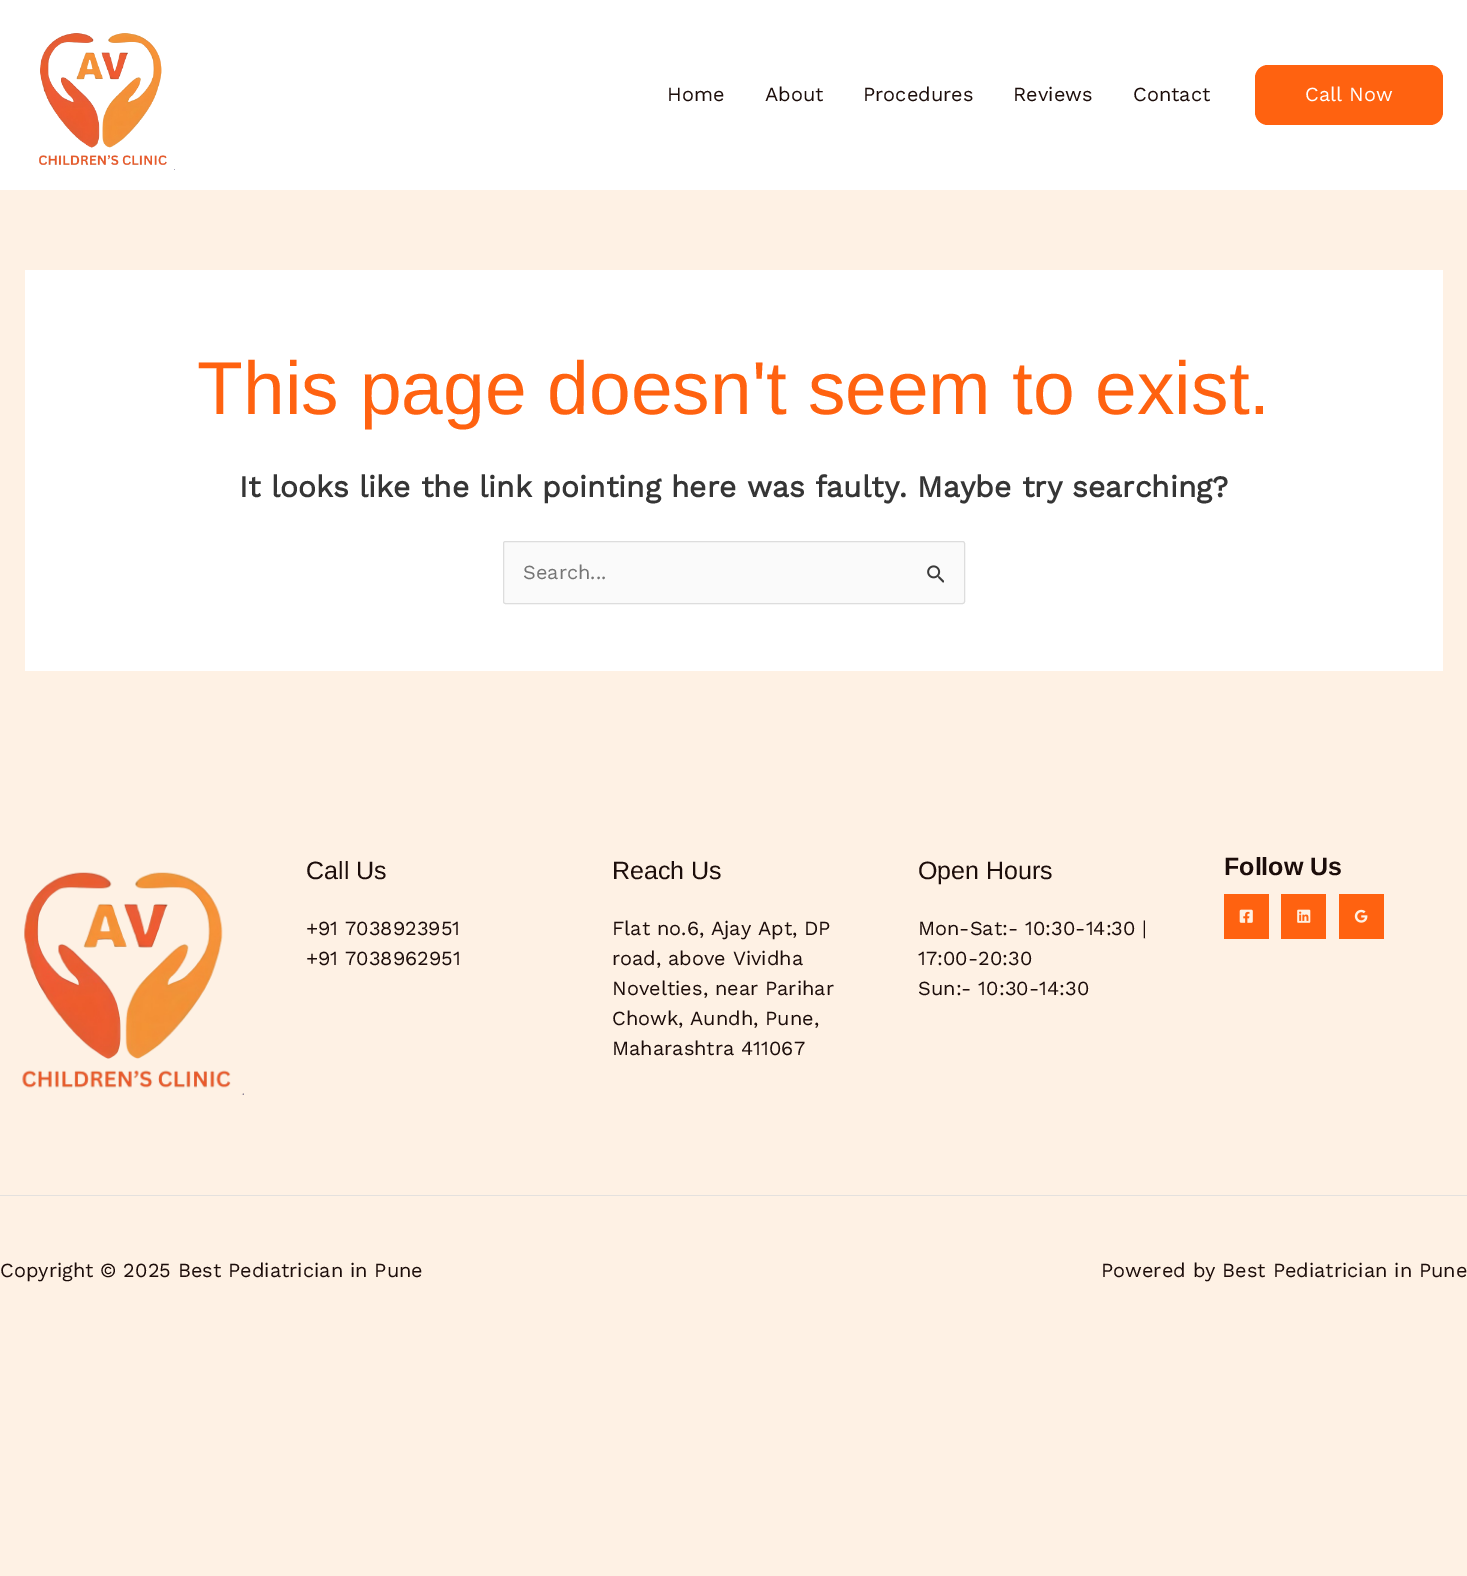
%!PS-Adobe-3.0
%%BoundingBox: 0 0 1467 1576
%%LanguageLevel: 3
%%Pages: 1
%%EndComments
%%BeginProlog
/f { fill } bind def
/S { stroke } bind def
/q { gsave } bind def
/Q { grestore } bind def
/fn { [ exch dup neg 0 0 3 -1 roll 0 0 ] selectfont } def
/tx { moveto show } def
/bx { rectfill } def
/rr { 5 dict begin { /r /h /w /y /x } { exch def } forall
  x r add y moveto x w add y 2 copy h add r arct x w add y h add x 1 index r arct
  x y h add x y r arct x y 2 copy exch w add exch r arct closepath end } def
/im { 5 dict begin { /h /w /y /x /name } { exch def } forall
  gsave x y translate w h scale
  w h 8 [w 0 0 h 0 0] name (r) file false 3 colorimage grestore end } def
%%EndProlog
%%BeginSetup
<< /PageSize [1467 1576] >> setpagedevice
%%EndSetup
%%Page: 1 1
0 1576 translate 1 -1 scale
4 setmiterlimit
0.996 0.945 0.894 setrgbcolor
0 0 1467 1576 bx
1 setgray
0 0 1467 190 bx
(image0.raw) 39 33 136 137 im
/WorkSans-Regular 20 fn
0.11 0.051 0.039 setrgbcolor
(Home) 667 101 tx
(About) 765 101 tx
(Procedures) 863 101 tx
(Reviews) 1013 101 tx
(Contact) 1133 101 tx
1 0.384 0.063 setrgbcolor
1255 65 188 60 13 rr f
1 setgray
(Call Now) 1305 101 tx
25 270 1418 401 bx
/LiberationSans-Regular 75 fn
1 0.384 0.063 setrgbcolor
(This page doesn't seem to exist.) 197 414 tx
/WorkSans-Bold 30 fn
0.208 setgray
(It looks like the link pointing here was faulty. Maybe try searching?) 239 497 tx
0.98 setgray
503.5 541.5 461 62 2 rr q f Q
0.867 setgray
S
/WorkSans-Regular 20 fn
0.459 setgray
(Search...) 523 579 tx
(image1.raw) 927 565 17 18 im
(image2.raw) 22 872 222 223 im
/LiberationSans-Regular 25 fn
0.11 0.051 0.039 setrgbcolor
(Call Us) 306 879 tx
/WorkSans-Regular 20 fn
(+91 7038923951) 306 935 tx
(+91 7038962951) 306 965 tx
/LiberationSans-Regular 25 fn
(Reach Us) 612 879 tx
/WorkSans-Regular 20 fn
(Flat no.6, Ajay Apt, DP) 612 935 tx
(road, above Vividha) 612 965 tx
(Novelties, near Parihar) 612 995 tx
(Chowk, Aundh, Pune,) 612 1025 tx
(Maharashtra 411067) 612 1055 tx
/LiberationSans-Regular 25 fn
(Open Hours) 918 879 tx
/WorkSans-Regular 20 fn
(Mon-Sat:- 10:30-14:30 |) 918 935 tx
(17:00-20:30) 918 965 tx
(Sun:- 10:30-14:30) 918 995 tx
/LiberationSans-Bold 25 fn
(Follow Us) 1224 875 tx
1 0.384 0.063 setrgbcolor
1224 894 45 45 bx
(image3.raw) 1239 909 14 14 im
1281 894 45 45 bx
(image4.raw) 1297 909 14 14 im
1339 894 45 45 bx
(image5.raw) 1354 909 14 14 im
0.894 0.882 0.871 setrgbcolor
0 1195 1467 1 bx
/WorkSans-Regular 20 fn
0.11 0.051 0.039 setrgbcolor
(Copyright © 2025 Best Pediatrician in Pune) 0 1277 tx
(Powered by Best Pediatrician in Pune) 1101 1277 tx
showpage
%%EOF
